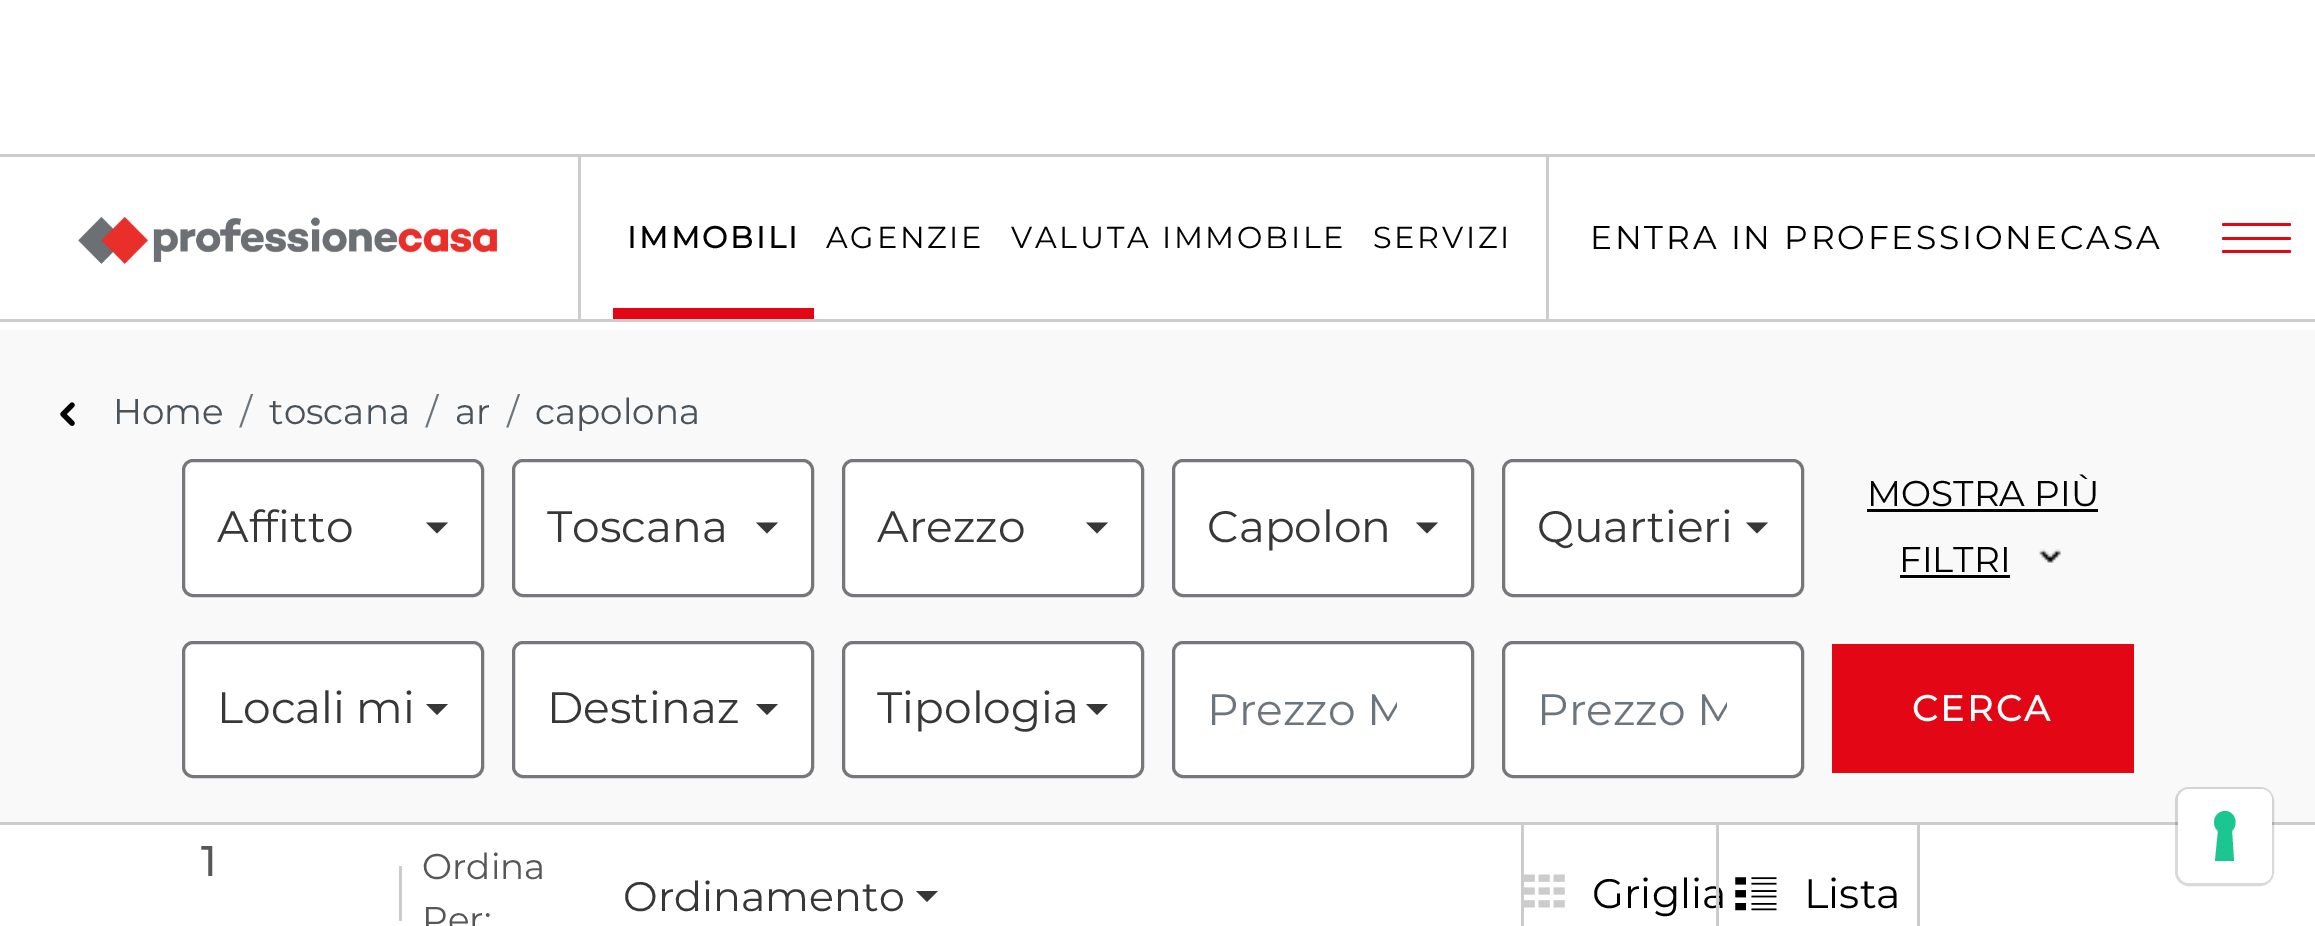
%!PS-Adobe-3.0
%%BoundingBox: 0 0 2315 926
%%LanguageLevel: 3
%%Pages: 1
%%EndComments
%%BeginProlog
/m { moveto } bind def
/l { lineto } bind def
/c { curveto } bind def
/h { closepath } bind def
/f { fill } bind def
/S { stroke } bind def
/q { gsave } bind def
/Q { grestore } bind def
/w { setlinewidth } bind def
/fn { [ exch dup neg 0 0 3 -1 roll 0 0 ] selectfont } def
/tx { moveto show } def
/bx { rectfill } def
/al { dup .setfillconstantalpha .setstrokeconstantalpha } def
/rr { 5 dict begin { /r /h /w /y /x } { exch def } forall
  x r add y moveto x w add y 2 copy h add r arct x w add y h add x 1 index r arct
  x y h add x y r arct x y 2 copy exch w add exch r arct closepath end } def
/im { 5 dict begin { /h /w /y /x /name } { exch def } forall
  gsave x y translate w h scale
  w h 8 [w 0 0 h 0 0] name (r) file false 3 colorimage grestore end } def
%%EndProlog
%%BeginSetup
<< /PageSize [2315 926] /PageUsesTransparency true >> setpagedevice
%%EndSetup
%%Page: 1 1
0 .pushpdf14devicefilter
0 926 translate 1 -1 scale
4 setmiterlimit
1 setgray
0 0 2315 926 bx
0.804 0.8 0.8 setrgbcolor
0 154 2315 3 bx
0 319 2315 3 bx
578 157 3 162 bx
(image0.raw) 78 217 419 47 im
0.89 0.027 0.082 setrgbcolor
613 308 201 11 bx
/Montserrat-Bold 30.25 fn
0 setgray
627 248 m 2.75 0 (IMMOBILI) ashow
/Montserrat-Regular 30.25 fn
826 248 m 2.75 0 (AGENZIE) ashow
1011 248 m 2.75 0 (VALUTA IMMOBILE) ashow
1373 248 m 2.75 0 (SERVIZI) ashow
0.804 0.8 0.8 setrgbcolor
1546 157 3 162 bx
/Montserrat-Regular 33 fn
0 setgray
1590 249 m 2.75 0 (ENTRA IN PROFESSIONECASA) ashow
0.89 0.027 0.082 setrgbcolor
2222 223 69 3 1.5 rr f
2222 237 69 3 1.5 rr f
2222 250 69 3 1.5 rr f
0.976 setgray
0 330 2315 492 bx
(image1.raw) 60 402 15 24 im
/Montserrat-Regular 35.75 fn
0.294 0.325 0.353 setrgbcolor
(Home) 113 424 tx
0.424 0.459 0.49 setrgbcolor
(/) 240 424 tx
0.294 0.325 0.353 setrgbcolor
(toscana) 269 424 tx
0.424 0.459 0.49 setrgbcolor
(/) 426 424 tx
0.294 0.325 0.353 setrgbcolor
(ar) 455 424 tx
0.424 0.459 0.49 setrgbcolor
(/) 507 424 tx
0.294 0.325 0.353 setrgbcolor
(capolona) 535 424 tx
1 setgray
183.5 460.5 299 135 9.5 rr q f Q
0.463 0.467 0.478 setrgbcolor
3 w
S
/Montserrat-Regular 44 fn
0.216 setgray
(Affitto) 217 542 tx
426 522.5 m 448 522.5 l 437 533.5 l h f
1 setgray
513.5 460.5 299 135 9.5 rr q f Q
0.463 0.467 0.478 setrgbcolor
S
0.216 setgray
(Toscana) 547 542 tx
756 522.5 m 778 522.5 l 767 533.5 l h f
1 setgray
843.5 460.5 299 135 9.5 rr q f Q
0.463 0.467 0.478 setrgbcolor
S
0.216 setgray
(Arezzo) 877 542 tx
1086 522.5 m 1108 522.5 l 1097 533.5 l h f
1 setgray
1173.5 460.5 299 135 9.5 rr q f Q
0.463 0.467 0.478 setrgbcolor
S
0.216 setgray
(Capolon) 1207 542 tx
1416 522.5 m 1438 522.5 l 1427 533.5 l h f
1 setgray
1503.5 460.5 299 135 9.5 rr q f Q
0.463 0.467 0.478 setrgbcolor
S
0.216 setgray
(Quartieri) 1537 542 tx
1746 522.5 m 1768 522.5 l 1757 533.5 l h f
/Montserrat-Regular 35.75 fn
0 setgray
(MOSTRA PIÙ) 1867 506 tx
1867 509 231 3 bx
(FILTRI) 1899 572 tx
1900 575 110 3 bx
(image2.raw) 2039 549 22 14 im
1 setgray
183.5 642.5 299 134 9.5 rr q f Q
0.463 0.467 0.478 setrgbcolor
S
/Montserrat-Regular 44 fn
0.216 setgray
(Locali mi) 217 723 tx
426 704 m 448 704 l 437 715 l h f
1 setgray
513.5 642.5 299 134 9.5 rr q f Q
0.463 0.467 0.478 setrgbcolor
S
0.216 setgray
(Destinaz) 547 723 tx
756 704 m 778 704 l 767 715 l h f
1 setgray
843.5 642.5 299 134 9.5 rr q f Q
0.463 0.467 0.478 setrgbcolor
S
0.216 setgray
(Tipologia) 877 723 tx
1086 704 m 1108 704 l 1097 715 l h f
1 setgray
1173.5 642.5 299 134 9.5 rr q f Q
0.463 0.467 0.478 setrgbcolor
S
q
1207 685 190 52 rectclip
0.424 0.459 0.49 setrgbcolor
(Prezzo M) 1207 725 tx
Q
1 setgray
1503.5 642.5 299 134 9.5 rr q f Q
0.463 0.467 0.478 setrgbcolor
S
q
1537 685 190 52 rectclip
0.424 0.459 0.49 setrgbcolor
(Prezzo M) 1537 725 tx
Q
0.89 0.027 0.082 setrgbcolor
1832 644 302 129 bx
/Montserrat-Bold 35.75 fn
1 setgray
1912 721 m 2.75 0 (CERCA) ashow
0.804 0.8 0.8 setrgbcolor
0 822 2315 3 bx
/Montserrat-Bold 41.25 fn
0.341 0.341 0.337 setrgbcolor
(1) 201 876 tx
0.804 0.8 0.8 setrgbcolor
399 866 3 55 bx
/Montserrat-Regular 35.75 fn
0.341 0.341 0.337 setrgbcolor
(Ordina) 422 879 tx
(Per:) 422 932 tx
/Montserrat-Regular 41.25 fn
0.216 setgray
(Ordinamento) 623 911 tx
916 891 m 938 891 l 927 902 l h f
0.804 0.8 0.8 setrgbcolor
1521 825 3 101 bx
(image3.raw) 1524 874 41 34 im
0 setgray
(Griglia) 1592 908 tx
0.804 0.8 0.8 setrgbcolor
1917 825 3 101 bx
1716 825 3 101 bx
(image4.raw) 1735 877 42 34 im
0 setgray
(Lista) 1804 908 tx
0.15 al
2176.5 788.5 96 96 12.5 rr S
1 al
1 setgray
2178 789 94 94 11 rr f
0.11 0.776 0.569 setrgbcolor
2225 811 m 2235 811 2239 824 2232 831 c 2234 861 l 2215 861 l 2218 831 l 2210 824 2215 811 2225 811 c h eofill
.poppdf14devicefilter showpage
%%EOF
